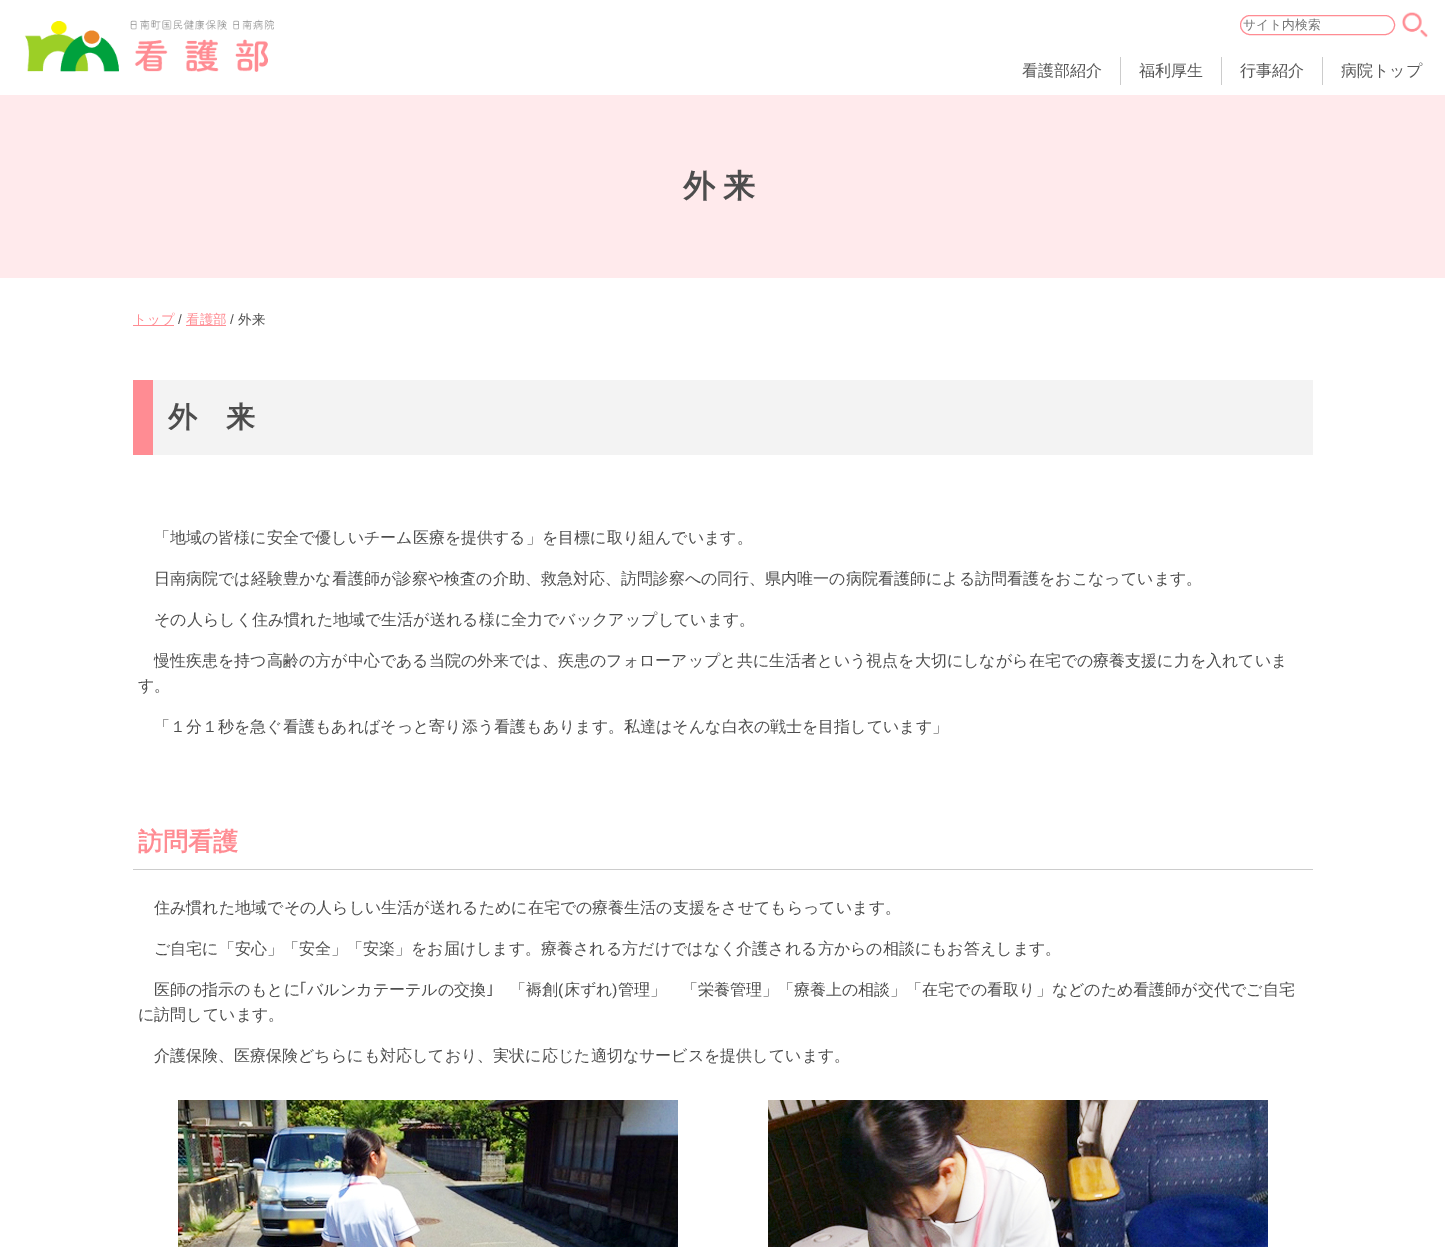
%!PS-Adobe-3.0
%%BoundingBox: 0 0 1445 1247
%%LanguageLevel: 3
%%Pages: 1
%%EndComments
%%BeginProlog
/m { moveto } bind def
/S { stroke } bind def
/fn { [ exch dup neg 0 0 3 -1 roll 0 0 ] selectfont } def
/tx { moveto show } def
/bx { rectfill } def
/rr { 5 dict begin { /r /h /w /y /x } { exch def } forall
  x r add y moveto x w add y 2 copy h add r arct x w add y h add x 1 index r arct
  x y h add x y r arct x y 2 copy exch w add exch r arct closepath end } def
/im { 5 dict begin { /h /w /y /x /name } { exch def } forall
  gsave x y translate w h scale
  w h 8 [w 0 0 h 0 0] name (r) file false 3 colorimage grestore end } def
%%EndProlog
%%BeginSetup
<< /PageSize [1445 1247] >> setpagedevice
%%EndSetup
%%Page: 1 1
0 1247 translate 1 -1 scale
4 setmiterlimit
1 setgray
0 0 1445 1247 bx
(image0.raw) 24 19 250 53 im
1 0.549 0.576 setrgbcolor
1240.5 15.5 154 19 9.5 rr S
/WenQuanYiZenHei-Medium 12.75 fn
0.459 setgray
(サイト内検索) 1243 29 tx
(image1.raw) 1402 12 26 26 im
/WenQuanYiZenHei-Medium 16 fn
0.341 setgray
(看護部紹介) 1022 76 tx
0.8 setgray
1120 57 1 28 bx
0.341 setgray
(福利厚生) 1139 76 tx
0.8 setgray
1221 57 1 28 bx
0.341 setgray
(行事紹介) 1240 76 tx
0.8 setgray
1322 57 1 28 bx
0.341 setgray
(病院トップ) 1341 76 tx
1 0.918 0.925 setrgbcolor
0 95 1445 183 bx
/WenQuanYiZenHei-Bold 32 fn
0.302 setgray
683 197 m 8 0 (外来) ashow
1 0.549 0.576 setrgbcolor
133 325 41 1 bx
/WenQuanYiZenHei-Medium 13.5 fn
(トップ) 133 324 tx
/LiberationSans-Regular 13.5 fn
0.302 setgray
(/) 178 324 tx
1 0.549 0.576 setrgbcolor
186 325 40 1 bx
/WenQuanYiZenHei-Medium 13.5 fn
(看護部) 186 324 tx
/LiberationSans-Regular 13.5 fn
0.302 setgray
(/) 230 324 tx
/WenQuanYiZenHei-Medium 13.5 fn
(外来) 238 324 tx
0.953 setgray
153 380 1160 75 bx
1 0.549 0.576 setrgbcolor
133 380 20 75 bx
/WenQuanYiZenHei-Bold 29 fn
0.302 setgray
(外　来) 168 427 tx
/WenQuanYiZenHei-Medium 16 fn
(「地域の皆様に安全で優しいチーム医療を提供する」を目標に取り組んでいます。) 154 543 tx
(日南病院では経験豊かな看護師が診察や検査の介助、救急対応、訪問診察への同行、県内唯一の病院看護師による訪問看護をおこなっています。) 154 584 tx
(その人らしく住み慣れた地域で生活が送れる様に全力でバックアップしています。) 154 625 tx
(慢性疾患を持つ高齢の方が中心である当院の外来では、疾患のフォローアップと共に生活者という視点を大切にしながら在宅での療養支援に力を入れていま) 154 666 tx
(す。) 138 691 tx
(「１分１秒を急ぐ看護もあればそっと寄り添う看護もあります。私達はそんな白衣の戦士を目指しています」) 154 732 tx
0.8 setgray
133 869 1180 1 bx
/WenQuanYiZenHei-Bold 25 fn
1 0.549 0.576 setrgbcolor
(訪問看護) 138 850 tx
/WenQuanYiZenHei-Medium 16 fn
0.302 setgray
(住み慣れた地域でその人らしい生活が送れるために在宅での療養生活の支援をさせてもらっています。) 154 913 tx
(ご自宅に「安心」「安全」「安楽」をお届けします。療養される方だけではなく介護される方からの相談にもお答えします。) 154 954 tx
(医師の指示のもとに) 154 995 tx
/IPAPGothic-Regular 16 fn
(｢) 299 995 tx
/WenQuanYiZenHei-Medium 16 fn
(バルンカテーテルの交換) 307 995 tx
/IPAPGothic-Regular 16 fn
(｣) 486 995 tx
/WenQuanYiZenHei-Medium 16 fn
(「褥創) 510 995 tx
/LiberationSans-Regular 16 fn
(\() 558 995 tx
/WenQuanYiZenHei-Medium 16 fn
(床ずれ) 564 995 tx
/LiberationSans-Regular 16 fn
(\)) 612 995 tx
/WenQuanYiZenHei-Medium 16 fn
(管理」　「栄養管理」「療養上の相談」「在宅での看取り」などのため看護師が交代でご自宅) 618 995 tx
(に訪問しています。) 138 1020 tx
(介護保険、医療保険どちらにも対応しており、実状に応じた適切なサービスを提供しています。) 154 1061 tx
(image2.raw) 178 1100 500 147 im
(image3.raw) 768 1100 500 147 im
showpage
%%EOF
